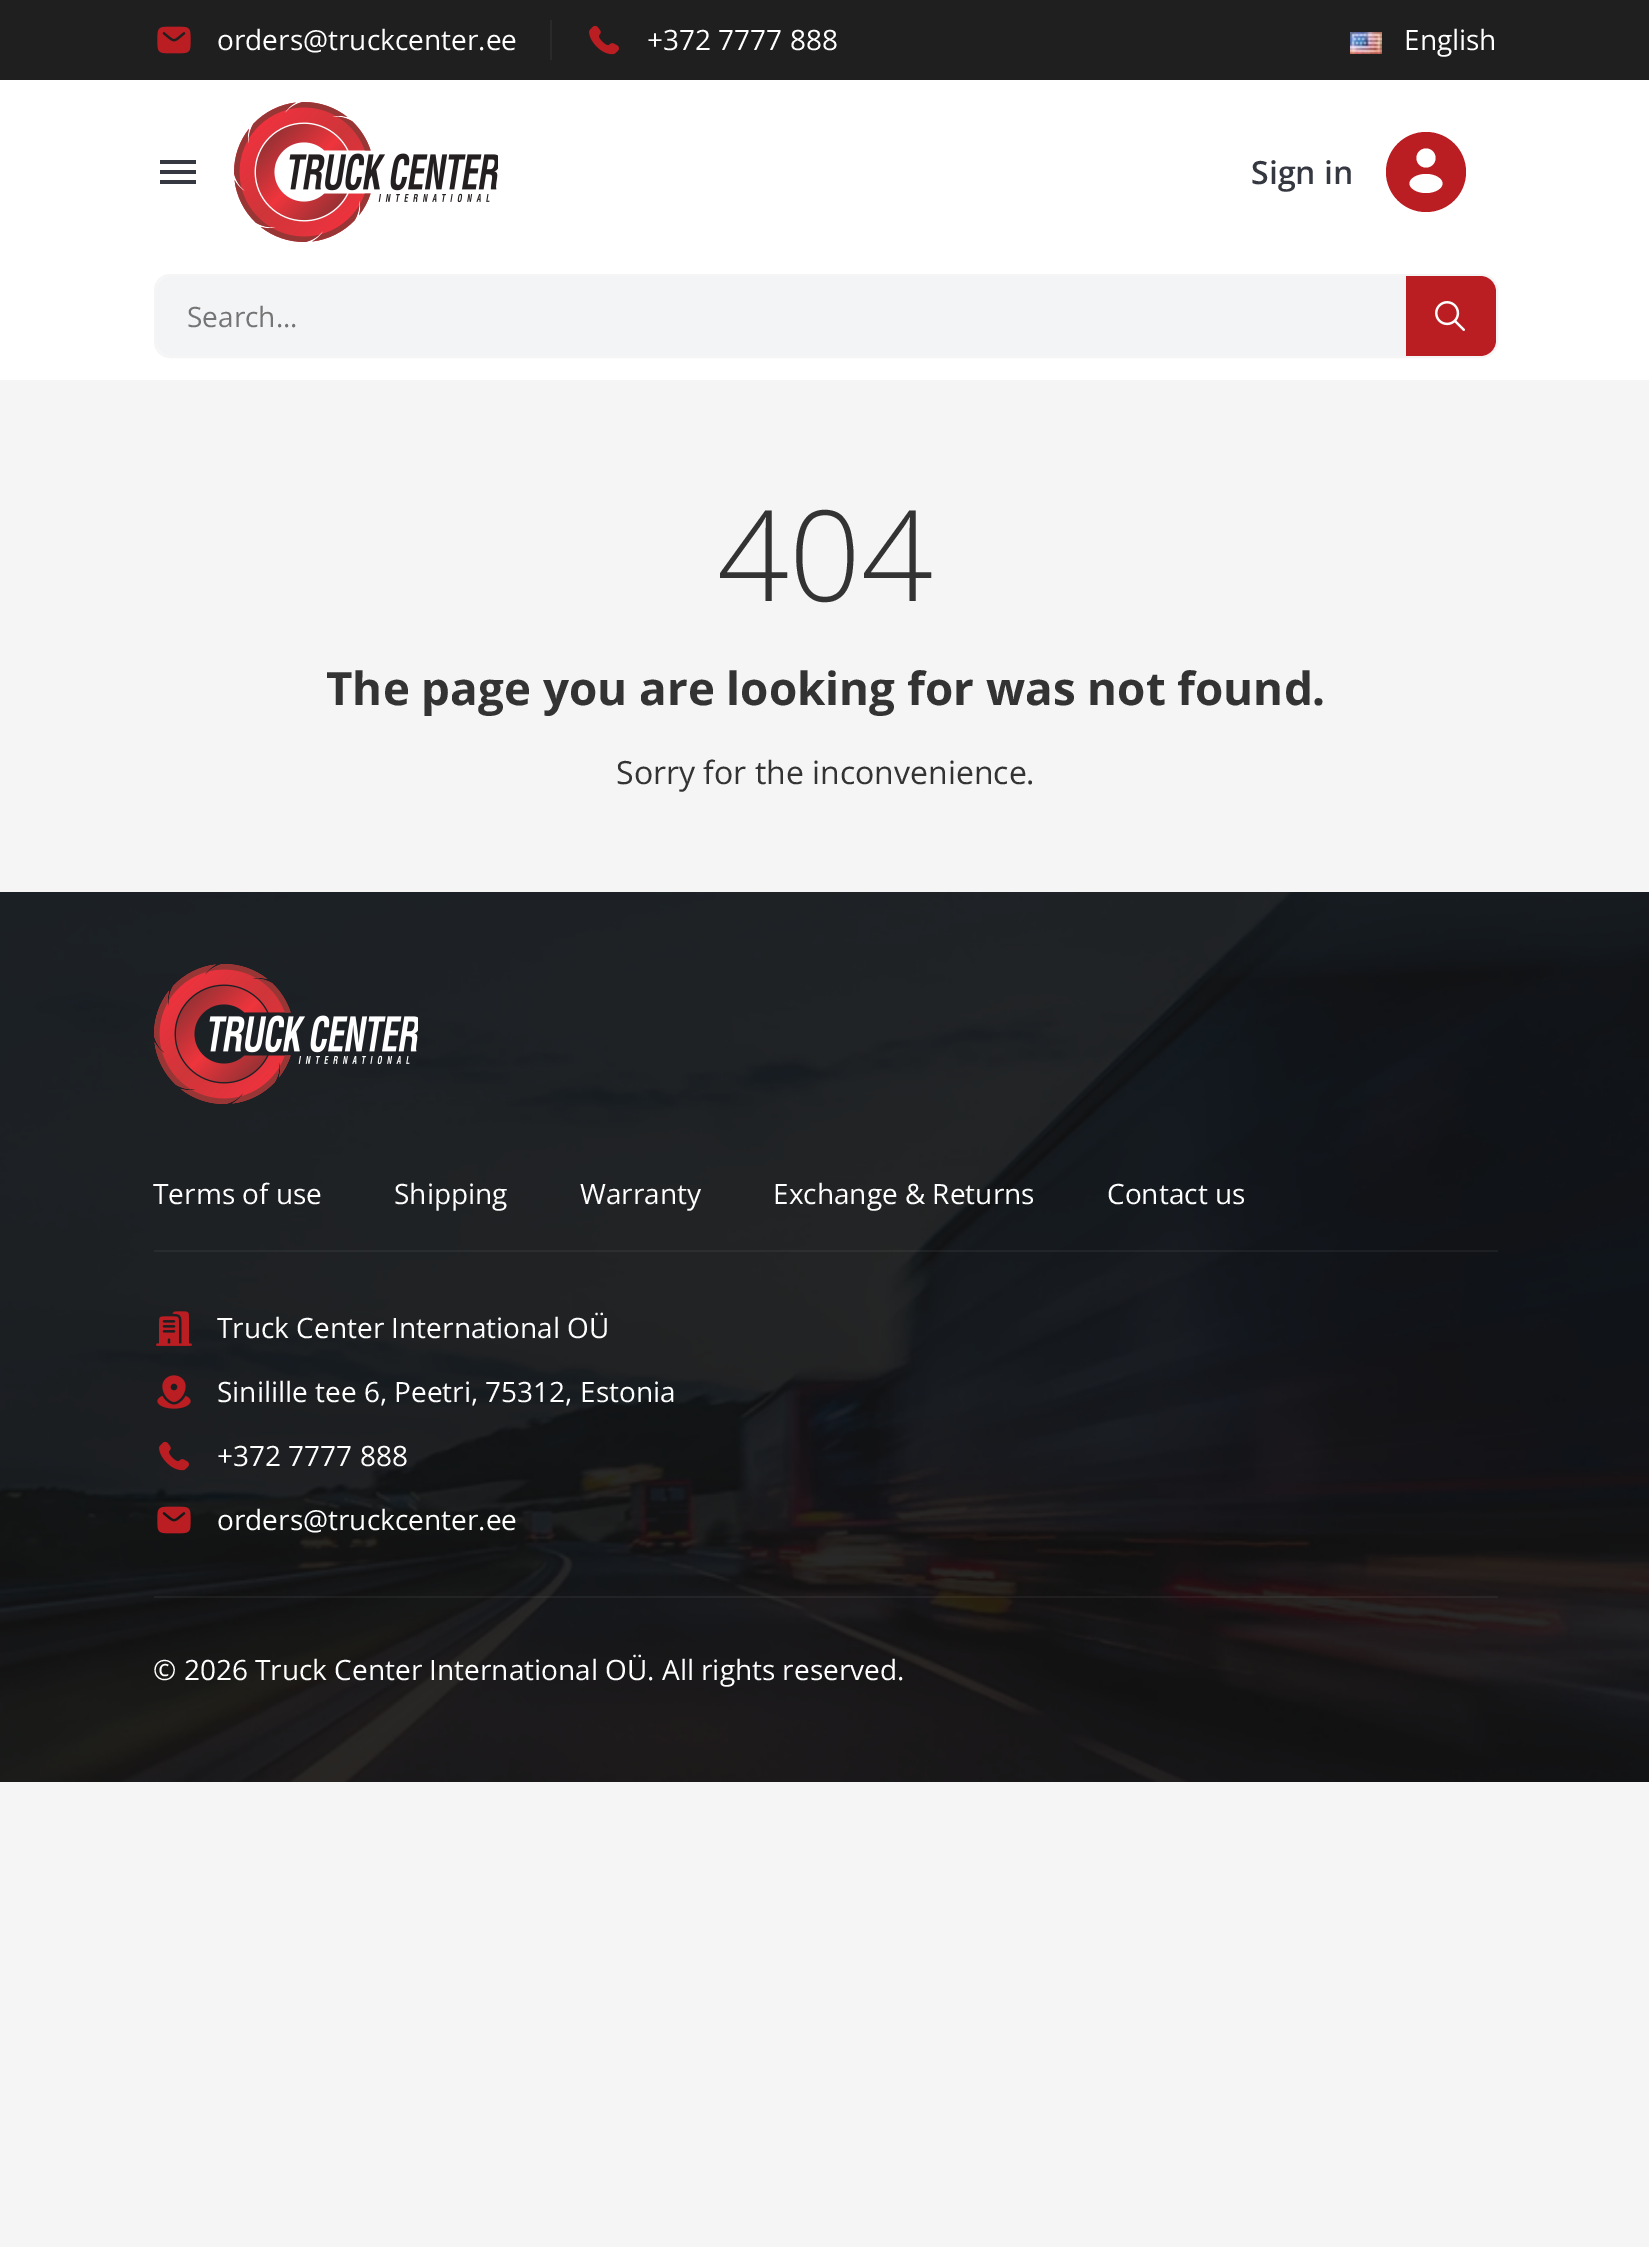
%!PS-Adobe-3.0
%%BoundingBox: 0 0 1649 2247
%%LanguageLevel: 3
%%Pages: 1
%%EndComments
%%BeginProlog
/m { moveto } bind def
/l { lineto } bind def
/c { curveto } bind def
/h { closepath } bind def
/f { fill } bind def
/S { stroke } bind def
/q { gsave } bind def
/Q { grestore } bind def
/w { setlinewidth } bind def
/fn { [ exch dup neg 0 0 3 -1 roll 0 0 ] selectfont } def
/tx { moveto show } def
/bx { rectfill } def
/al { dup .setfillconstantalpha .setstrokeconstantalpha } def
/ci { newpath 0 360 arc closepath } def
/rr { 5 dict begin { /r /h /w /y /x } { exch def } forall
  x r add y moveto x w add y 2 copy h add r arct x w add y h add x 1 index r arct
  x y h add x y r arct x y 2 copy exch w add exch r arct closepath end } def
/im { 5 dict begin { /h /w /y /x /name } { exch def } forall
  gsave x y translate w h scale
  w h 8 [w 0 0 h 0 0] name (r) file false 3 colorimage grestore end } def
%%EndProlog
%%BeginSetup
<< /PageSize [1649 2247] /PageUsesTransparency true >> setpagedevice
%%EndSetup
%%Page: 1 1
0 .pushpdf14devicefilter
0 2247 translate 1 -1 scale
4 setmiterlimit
0.961 setgray
0 0 1649 2247 bx
1 setgray
0 80 1649 300 bx
0.122 setgray
0 0 1649 80 bx
0.165 setgray
550 20 2 40 bx
(image0.raw) 157 26 34 28 im
/OpenSans-Regular 28 fn
1 setgray
(orders@truckcenter.ee) 217 50 tx
(image1.raw) 589 25 30 30 im
(+372 7777 888) 647 50 tx
(image2.raw) 1350 32 32 22 im
(English) 1404 50 tx
0.208 0.22 0.255 setrgbcolor
160 160 m 196 160 l 196 164 l 160 164 l h 160 174 m 160 170 l 196 170 l 196 174 l h 160 184 m 160 180 l 196 180 l 196 184 l h f
(image3.raw) 234 102 264 140 im
/OpenSans-SemiBold 32 fn
(Sign in) 1251 184 tx
0.729 0.114 0.133 setrgbcolor
1426 172 40 ci f
1 setgray
1426 158 9.5 ci f
1426 174 m 1435 174 1442.5 178.5 1442.5 183.5 c 1442.5 188.5 1435 193 1426 193 c 1417 193 1409.5 188.5 1409.5 183.5 c 1409.5 178.5 1417 174 1426 174 c h f
0.961 setgray
2 w
155 275 1342 82 15 rr S
q
156 276 1340 80 14 rr clip newpath
0.953 0.957 0.965 setrgbcolor
172 276 m 1408 276 l 1408 356 l 172 356 l 163 356 156 349 156 340 c 156 292 l 156 283 163 276 172 276 c h f
Q
/OpenSans-Regular 28 fn
0.459 setgray
(Search...) 187 327 tx
q
156 276 1340 80 14 rr clip newpath
0.729 0.114 0.133 setrgbcolor
1406 276 m 1480 276 l 1489 276 1496 283 1496 292 c 1496 340 l 1496 349 1489 356 1480 356 c 1406 356 l h f
Q
(image4.raw) 1435 301 30 30 im
/OpenSans-Light 126 fn
0.2 setgray
(404) 717 601 tx
/OpenSans-Bold 45.75 fn
(The page you are looking for was not found.) 326 705 tx
/OpenSans-Regular 32 fn
(Sorry for the inconvenience.) 616 784 tx
0.067 setgray
0 892 1649 890 bx
(image5.raw) 0 892 1649 890 im
0.05 al
1 setgray
154 1250 1344 2 bx
1 al
(image6.raw) 154 964 264 140 im
/OpenSans-Regular 28 fn
(Terms of use) 153 1204 tx
(Shipping) 394 1204 tx
(Warranty) 580 1204 tx
(Exchange & Returns) 773 1204 tx
(Contact us) 1107 1204 tx
0.05 al
154 1596 1344 2 bx
1 al
(image7.raw) 156 1311 36 35 im
(Truck Center International OÜ) 217 1338 tx
(image8.raw) 157 1375 34 34 im
(Sinilille tee 6, Peetri, 75312, Estonia) 217 1402 tx
(image9.raw) 159 1441 30 30 im
(+372 7777 888) 217 1466 tx
(image10.raw) 157 1506 34 28 im
(orders@truckcenter.ee) 217 1530 tx
(© 2026 Truck Center International OÜ. All rights reserved.) 153 1680 tx
.poppdf14devicefilter showpage
%%EOF
